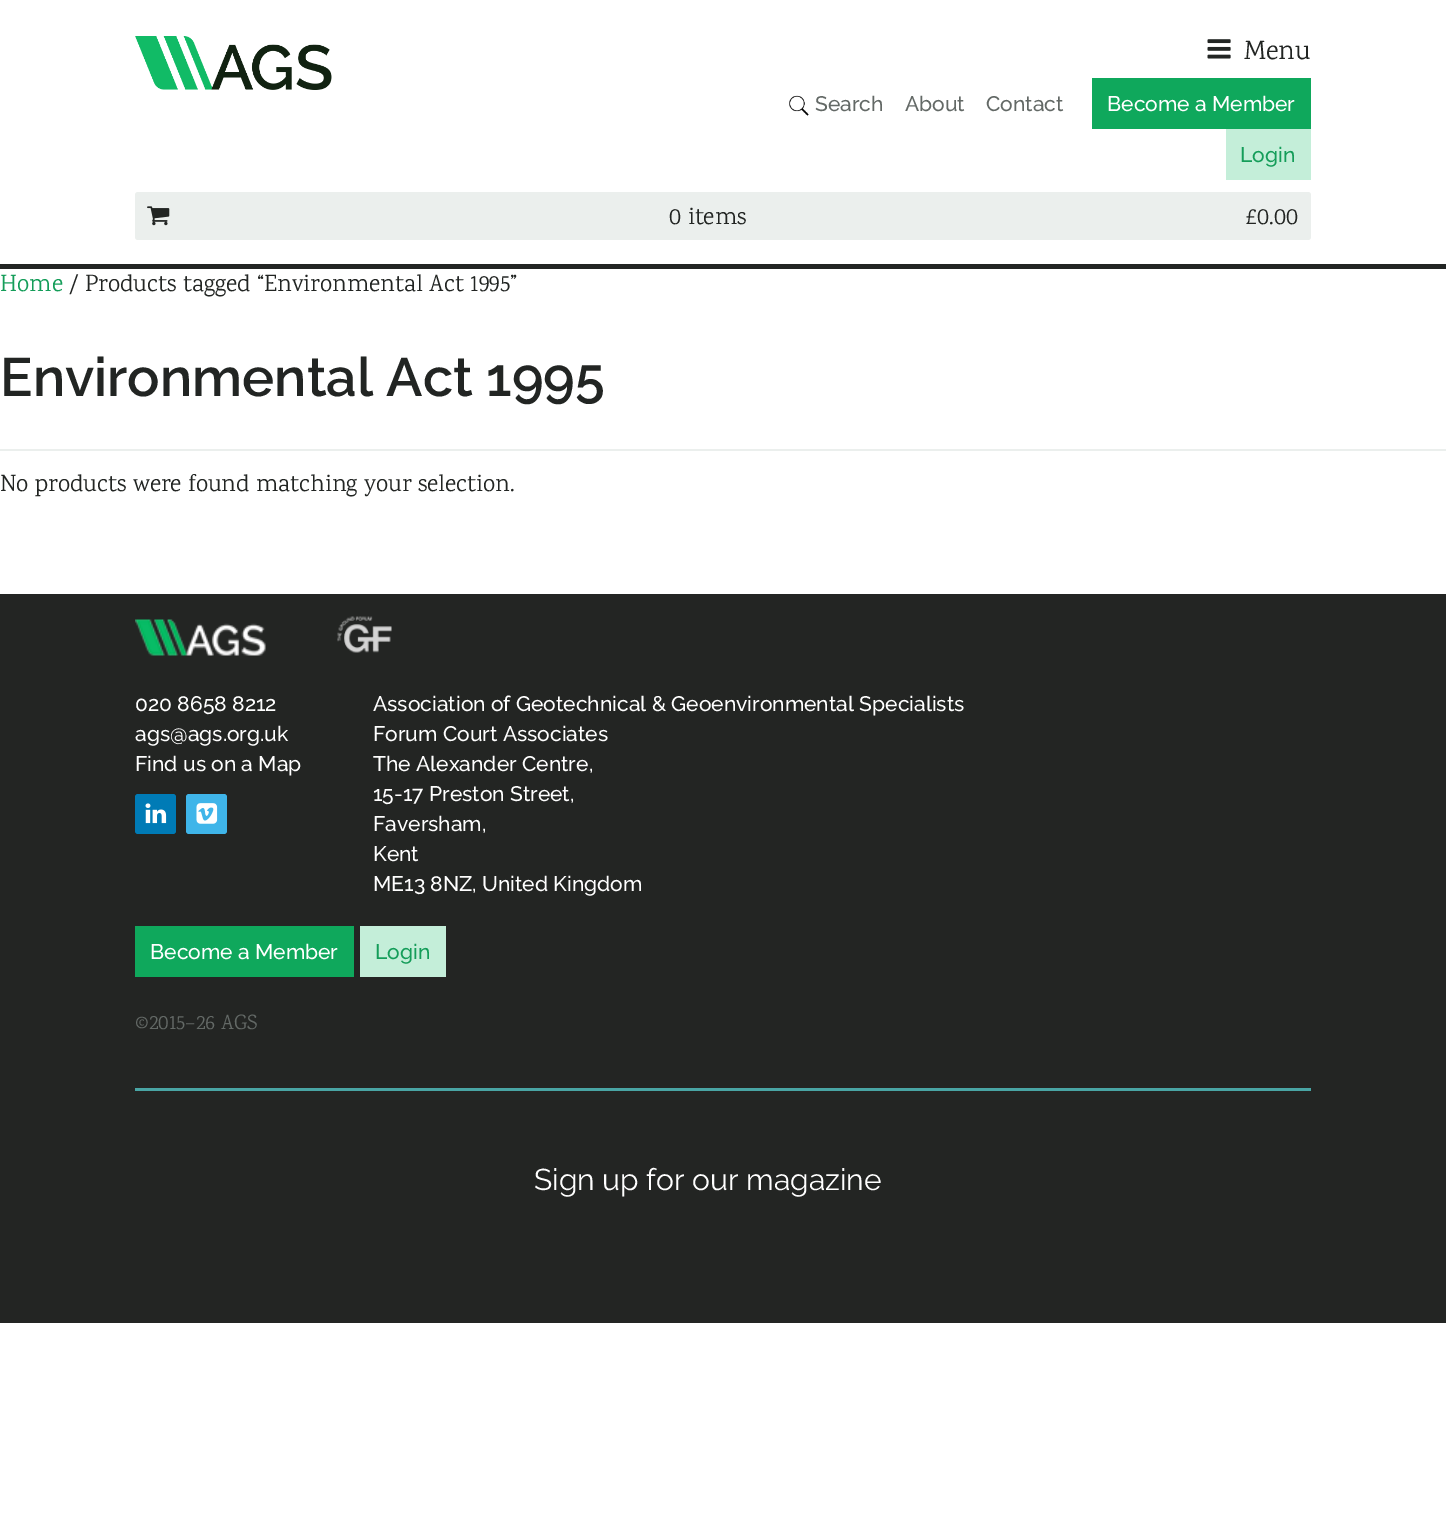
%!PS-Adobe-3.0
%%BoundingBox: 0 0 1446 1516
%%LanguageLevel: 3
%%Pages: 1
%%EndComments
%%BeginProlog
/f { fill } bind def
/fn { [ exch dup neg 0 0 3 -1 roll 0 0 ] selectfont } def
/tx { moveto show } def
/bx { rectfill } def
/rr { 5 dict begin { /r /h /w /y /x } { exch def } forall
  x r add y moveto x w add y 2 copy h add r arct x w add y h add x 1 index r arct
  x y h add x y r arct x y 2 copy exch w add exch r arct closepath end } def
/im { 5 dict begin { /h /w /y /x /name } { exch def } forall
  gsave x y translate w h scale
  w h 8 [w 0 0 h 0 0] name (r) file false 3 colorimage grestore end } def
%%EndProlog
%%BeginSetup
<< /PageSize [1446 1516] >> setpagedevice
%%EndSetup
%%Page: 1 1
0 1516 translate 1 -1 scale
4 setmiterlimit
1 setgray
0 0 1446 1516 bx
(image0.raw) 135 36 197 54 im
(image1.raw) 1207 39 24 20 im
/Karma-Regular 27 fn
0.133 0.145 0.137 setrgbcolor
(Menu) 1244 59 tx
(image2.raw) 789 95 20 21 im
/Raleway-Medium 21 fn
0.388 0.412 0.4 setrgbcolor
(Search) 815 111 tx
(About) 905 111 tx
(Contact) 986 111 tx
0.059 0.659 0.361 setrgbcolor
1092 78 219 51 bx
1 setgray
(Become a Member) 1107 111 tx
0.769 0.933 0.851 setrgbcolor
1226 129 85 51 bx
0.078 0.616 0.349 setrgbcolor
(Login) 1240 162 tx
0.922 0.937 0.929 setrgbcolor
135 192 1176 48 3 rr f
(image3.raw) 147 206 23 20 im
/Karma-Regular 24 fn
0.133 0.145 0.137 setrgbcolor
(0 items) 669 224 tx
(£0.00) 1245 224 tx
0 264 1446 5 bx
0.078 0.616 0.349 setrgbcolor
(Home) 0 291 tx
0.133 0.145 0.137 setrgbcolor
(/ Products tagged “Environmental Act 1995”) 69 291 tx
/Raleway-SemiBold 54 fn
(Environmental Act 1995) 0 396 tx
0.922 0.937 0.929 setrgbcolor
0 449 1446 2 bx
/Karma-Regular 24 fn
0.133 0.145 0.137 setrgbcolor
(No products were found matching your selection.) 0 491 tx
0.137 0.145 0.137 setrgbcolor
0 594 1446 729 bx
(image4.raw) 135 619 131 37 im
(image5.raw) 337 616 55 37 im
/Raleway-Medium 21 fn
1 setgray
(020 8658 8212) 135 711 tx
(ags@ags.org.uk) 135 741 tx
(Find us on a Map) 135 771 tx
0 0.482 0.714 setrgbcolor
135 794 41 40 3 rr f
(image6.raw) 145 803 22 21 im
0.247 0.71 0.914 setrgbcolor
186 794 41 40 3 rr f
(image7.raw) 196 803 22 21 im
1 setgray
(Association of Geotechnical & Geoenvironmental Specialists) 373 711 tx
(Forum Court Associates) 373 741 tx
(The Alexander Centre,) 373 771 tx
(15-17 Preston Street,) 373 801 tx
(Faversham,) 373 831 tx
(Kent) 373 861 tx
(ME13 8NZ, United Kingdom) 373 891 tx
0.059 0.659 0.361 setrgbcolor
135 926 219 51 bx
1 setgray
(Become a Member) 150 959 tx
0.769 0.933 0.851 setrgbcolor
360 926 86 51 bx
0.078 0.616 0.349 setrgbcolor
(Login) 375 959 tx
/Karma-Regular 21 fn
0.388 0.412 0.4 setrgbcolor
(©2015–26 AGS) 135 1029 tx
0.286 0.647 0.643 setrgbcolor
135 1088 1176 3 bx
/Raleway-Regular 30 fn
1 setgray
(Sign up for our magazine) 534 1190 tx
showpage
%%EOF
